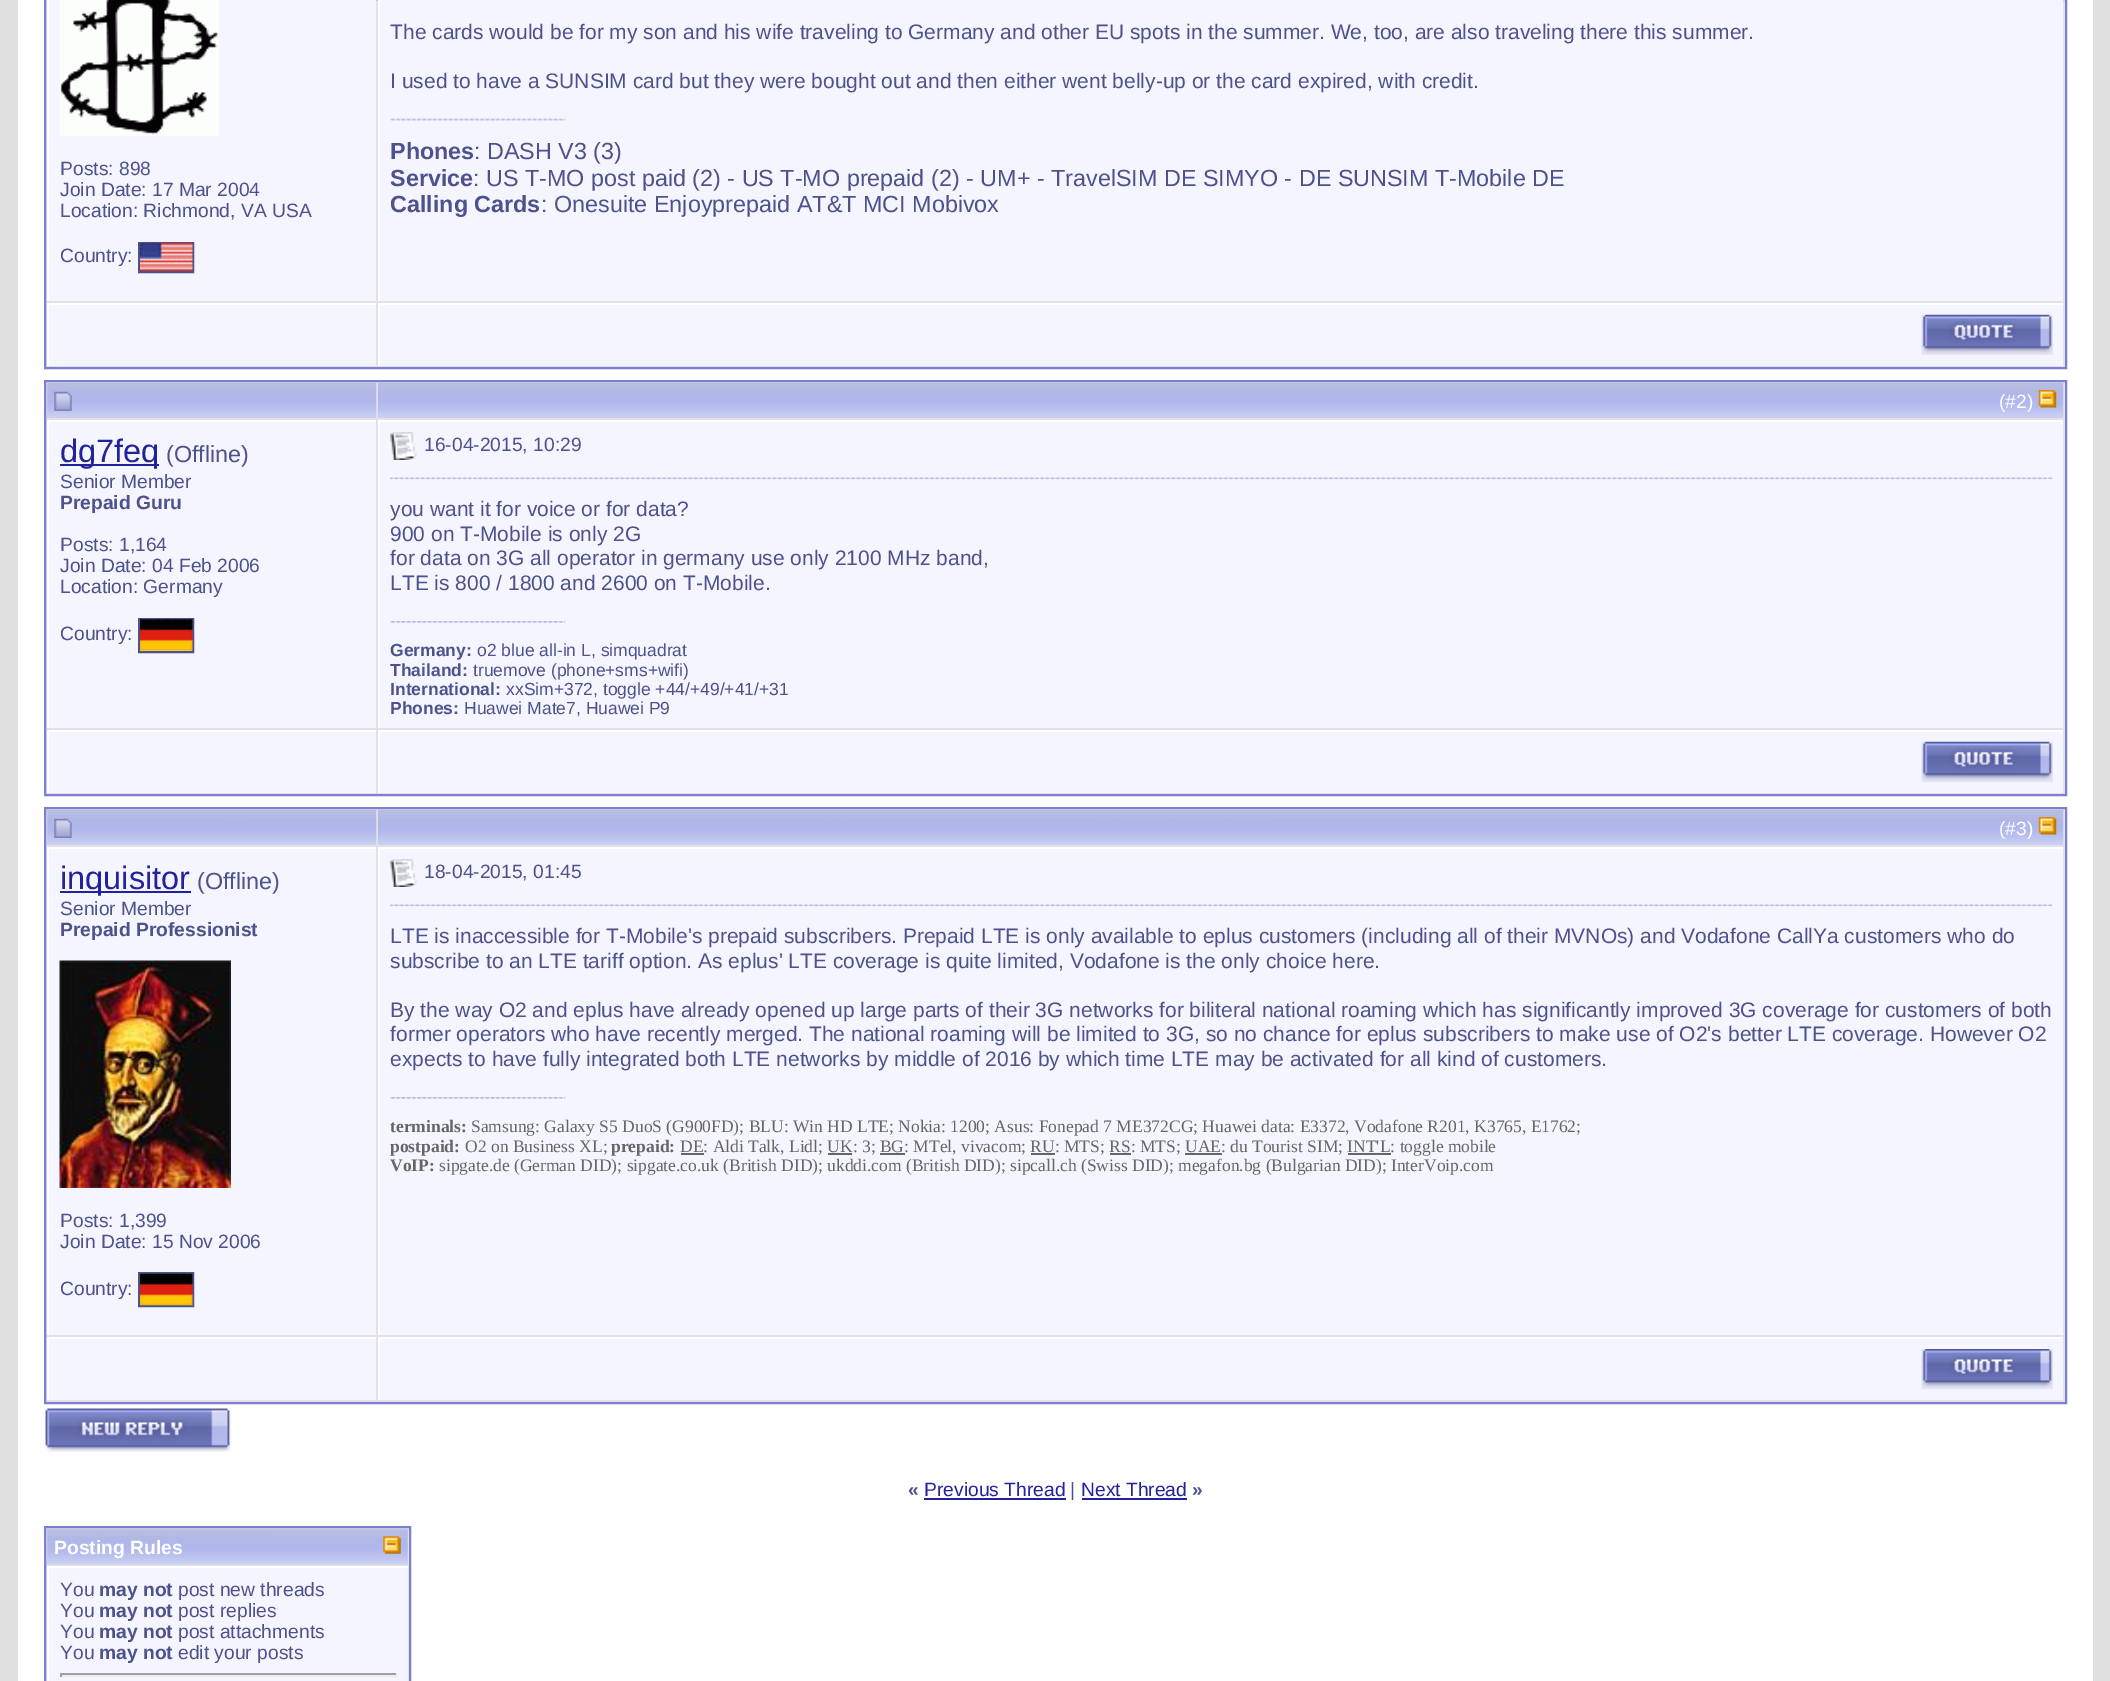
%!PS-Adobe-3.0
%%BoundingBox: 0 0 2110 1681
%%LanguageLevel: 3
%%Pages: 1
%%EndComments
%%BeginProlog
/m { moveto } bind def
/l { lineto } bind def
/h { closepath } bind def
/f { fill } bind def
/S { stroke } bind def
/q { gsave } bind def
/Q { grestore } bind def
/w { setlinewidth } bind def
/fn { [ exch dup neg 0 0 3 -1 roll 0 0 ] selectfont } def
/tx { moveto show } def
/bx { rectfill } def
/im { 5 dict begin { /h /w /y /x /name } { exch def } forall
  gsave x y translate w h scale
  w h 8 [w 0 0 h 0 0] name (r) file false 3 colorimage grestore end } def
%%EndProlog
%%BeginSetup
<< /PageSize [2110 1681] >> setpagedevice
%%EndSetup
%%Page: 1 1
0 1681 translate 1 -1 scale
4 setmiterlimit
0.882 0.882 0.886 setrgbcolor
0 0 2110 1681 bx
1 setgray
18 0 2075 1681 bx
0.886 0.882 0.918 setrgbcolor
45 -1 m 2066 -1 l 2066 368 l 45 368 l h q f Q
0.482 0.506 0.804 setrgbcolor
2 w
S
0.961 0.961 1 setrgbcolor
49 0 327 301 bx
1 setgray
47 0 2 301 bx
(image0.raw) 59 0 160 136 im
/LiberationSans-Regular 19.25 fn
0.302 0.322 0.549 setrgbcolor
(Posts: 898) 60 175 tx
(Join Date: 17 Mar 2004) 60 196 tx
(Location: Richmond, VA USA) 60 217 tx
139 243 54 29 rectstroke
(Country:) 60 262 tx
(image1.raw) 140 243 53 28 im
0.961 0.961 1 setrgbcolor
380 0 1683 301 bx
1 setgray
378 0 2 301 bx
/LiberationSans-Regular 21 fn
0.302 0.322 0.549 setrgbcolor
(The cards would be for my son and his wife traveling to Germany and other EU spots in the summer. We, too, are also traveling there this summer.) 390 39 tx
(I used to have a SUNSIM card but they were bought out and then either went belly-up or the card expired, with credit.) 390 88 tx
1 setgray
390 119 175 2 bx
(image2.raw) 390 118 176 3 im
/LiberationSans-Bold 23.35 fn
0.302 0.322 0.549 setrgbcolor
(Phones) 390 159 tx
/LiberationSans-Regular 23.35 fn
(: DASH V3 \(3\)) 474 159 tx
/LiberationSans-Bold 23.35 fn
(Service) 390 186 tx
/LiberationSans-Regular 23.35 fn
(: US T-MO post paid \(2\) - US T-MO prepaid \(2\) - UM+ - TravelSIM DE SIMYO - DE SUNSIM T-Mobile DE) 473 186 tx
/LiberationSans-Bold 23.35 fn
(Calling Cards) 390 212 tx
/LiberationSans-Regular 23.35 fn
(: Onesuite Enjoyprepaid AT&T MCI Mobivox) 541 212 tx
0.961 0.961 1 setrgbcolor
49 305 327 61 bx
1 setgray
47 303 329 2 bx
47 303 2 63 bx
0.961 0.961 1 setrgbcolor
380 305 1683 61 bx
1 setgray
378 303 1685 2 bx
378 303 2 63 bx
(image3.raw) 1921 314 132 41 im
0.886 0.882 0.918 setrgbcolor
45 381 m 2066 381 l 2066 795 l 45 795 l h q f Q
0.482 0.506 0.804 setrgbcolor
S
(image4.raw) 47 383 330 35 im
(image5.raw) 54 391 18 20 im
(image6.raw) 378 383 1686 35 im
/LiberationSans-Regular 19.25 fn
1 setgray
(\(#2\)) 1999 408 tx
(image7.raw) 2038 390 19 18 im
0.961 0.961 1 setrgbcolor
49 422 327 306 bx
1 setgray
47 420 329 2 bx
47 420 2 308 bx
0.133 0.133 0.612 setrgbcolor
60 464 99 2 bx
/LiberationSans-Regular 32.5 fn
(dg7feq) 60 462 tx
/LiberationSans-Regular 23.35 fn
0.302 0.322 0.549 setrgbcolor
(\(Offline\)) 166 462 tx
/LiberationSans-Regular 19.25 fn
(Senior Member) 60 488 tx
/LiberationSans-Bold 19.25 fn
(Prepaid Guru) 60 509 tx
/LiberationSans-Regular 19.25 fn
(Posts: 1,164) 60 551 tx
(Join Date: 04 Feb 2006) 60 572 tx
(Location: Germany) 60 593 tx
139 619 54 33 rectstroke
(Country:) 60 640 tx
(image8.raw) 140 619 53 32 im
0.961 0.961 1 setrgbcolor
380 422 1683 306 bx
1 setgray
378 420 1685 2 bx
378 420 2 308 bx
(image9.raw) 390 432 27 28 im
0.302 0.322 0.549 setrgbcolor
(16-04-2015, 10:29) 424 451 tx
1 setgray
390 478 1663 2 bx
(image10.raw) 390 477 1663 3 im
/LiberationSans-Regular 21 fn
0.302 0.322 0.549 setrgbcolor
(you want it for voice or for data?) 390 516 tx
(900 on T-Mobile is only 2G) 390 541 tx
(for data on 3G all operator in germany use only 2100 MHz band,) 390 565 tx
(LTE is 800 / 1800 and 2600 on T-Mobile.) 390 590 tx
1 setgray
390 621 175 2 bx
(image11.raw) 390 621 176 2 im
/LiberationSans-Bold 17.5 fn
0.302 0.322 0.549 setrgbcolor
(Germany:) 390 656 tx
/LiberationSans-Regular 17.5 fn
(o2 blue all-in L, simquadrat) 477 656 tx
/LiberationSans-Bold 17.5 fn
(Thailand:) 390 676 tx
/LiberationSans-Regular 17.5 fn
(truemove \(phone+sms+wifi\)) 473 676 tx
/LiberationSans-Bold 17.5 fn
(International:) 390 695 tx
/LiberationSans-Regular 17.5 fn
(xxSim+372, toggle +44/+49/+41/+31) 506 695 tx
/LiberationSans-Bold 17.5 fn
(Phones:) 390 714 tx
/LiberationSans-Regular 17.5 fn
(Huawei Mate7, Huawei P9) 464 714 tx
0.961 0.961 1 setrgbcolor
49 732 327 61 bx
1 setgray
47 730 329 2 bx
47 730 2 63 bx
0.961 0.961 1 setrgbcolor
380 732 1683 61 bx
1 setgray
378 730 1685 2 bx
378 730 2 63 bx
(image3.raw) 1921 741 132 41 im
0.886 0.882 0.918 setrgbcolor
45 808 m 2066 808 l 2066 1403 l 45 1403 l h q f Q
0.482 0.506 0.804 setrgbcolor
S
(image12.raw) 47 810 330 35 im
(image13.raw) 54 818 18 20 im
(image14.raw) 378 810 1686 35 im
/LiberationSans-Regular 19.25 fn
1 setgray
(\(#3\)) 1999 835 tx
(image7.raw) 2038 817 19 18 im
0.961 0.961 1 setrgbcolor
49 849 327 486 bx
1 setgray
47 847 329 2 bx
47 847 2 488 bx
0.133 0.133 0.612 setrgbcolor
60 891 131 2 bx
/LiberationSans-Regular 32.5 fn
(inquisitor) 60 889 tx
/LiberationSans-Regular 23.35 fn
0.302 0.322 0.549 setrgbcolor
(\(Offline\)) 197 889 tx
/LiberationSans-Regular 19.25 fn
(Senior Member) 60 915 tx
/LiberationSans-Bold 19.25 fn
(Prepaid Professionist) 60 936 tx
(image15.raw) 59 960 172 228 im
/LiberationSans-Regular 19.25 fn
(Posts: 1,399) 60 1227 tx
(Join Date: 15 Nov 2006) 60 1248 tx
139 1273 54 33 rectstroke
(Country:) 60 1295 tx
(image16.raw) 140 1273 53 33 im
0.961 0.961 1 setrgbcolor
380 849 1683 486 bx
1 setgray
378 847 1685 2 bx
378 847 2 488 bx
(image9.raw) 390 859 27 28 im
0.302 0.322 0.549 setrgbcolor
(18-04-2015, 01:45) 424 878 tx
1 setgray
390 905 1663 2 bx
(image10.raw) 390 904 1663 3 im
/LiberationSans-Regular 21 fn
0.302 0.322 0.549 setrgbcolor
(LTE is inaccessible for T-Mobile's prepaid subscribers. Prepaid LTE is only available to eplus customers \(including all of their MVNOs\) and Vodafone CallYa customers who do) 390 943 tx
(subscribe to an LTE tariff option. As eplus' LTE coverage is quite limited, Vodafone is the only choice here.) 390 968 tx
(By the way O2 and eplus have already opened up large parts of their 3G networks for biliteral national roaming which has significantly improved 3G coverage for customers of both) 390 1017 tx
(former operators who have recently merged. The national roaming will be limited to 3G, so no chance for eplus subscribers to make use of O2's better LTE coverage. However O2) 390 1041 tx
(expects to have fully integrated both LTE networks by middle of 2016 by which time LTE may be activated for all kind of customers.) 390 1066 tx
1 setgray
390 1097 175 2 bx
(image11.raw) 390 1097 176 2 im
/LiberationSerif-Bold 17.5 fn
0.4 setgray
(terminals:) 390 1132 tx
/LiberationSerif-Regular 17.5 fn
(Samsung: Galaxy S5 DuoS \(G900FD\); BLU: Win HD LTE; Nokia: 1200; Asus: Fonepad 7 ME372CG; Huawei data: E3372, Vodafone R201, K3765, E1762;) 471 1132 tx
/LiberationSerif-Bold 17.5 fn
(postpaid:) 390 1152 tx
/LiberationSerif-Regular 17.5 fn
(O2 on Business XL;) 465 1152 tx
/LiberationSerif-Bold 17.5 fn
(prepaid:) 611 1152 tx
681 1153 23 2 bx
/LiberationSerif-Regular 17.5 fn
(DE: Aldi Talk, Lidl; UK: 3; BG: MTel, vivacom; RU: MTS; RS: MTS; UAE: du Tourist SIM; INT'L: toggle mobile) 680 1152 tx
828 1153 24 2 bx
880 1153 25 2 bx
1031 1153 24 2 bx
1110 1153 21 2 bx
1185 1153 37 2 bx
1348 1153 43 2 bx
/LiberationSerif-Bold 17.5 fn
(VoIP:) 390 1171 tx
/LiberationSerif-Regular 17.5 fn
(sipgate.de \(German DID\); sipgate.co.uk \(British DID\); ukddi.com \(British DID\); sipcall.ch \(Swiss DID\); megafon.bg \(Bulgarian DID\); InterVoip.com) 439 1171 tx
0.961 0.961 1 setrgbcolor
49 1339 327 61 bx
1 setgray
47 1337 329 2 bx
47 1337 2 63 bx
0.961 0.961 1 setrgbcolor
380 1339 1683 61 bx
1 setgray
378 1337 1685 2 bx
378 1337 2 63 bx
(image17.raw) 1921 1349 132 41 im
(image18.raw) 45 1408 186 44 im
/LiberationSans-Bold 19.25 fn
0.302 0.322 0.549 setrgbcolor
(«) 908 1496 tx
/LiberationSans-Regular 19.25 fn
0.133 0.133 0.612 setrgbcolor
(Previous Thread) 924 1496 tx
924 1498 142 2 bx
0.302 0.322 0.549 setrgbcolor
(|) 1070 1496 tx
0.133 0.133 0.612 setrgbcolor
(Next Thread) 1081 1496 tx
1082 1498 105 2 bx
/LiberationSans-Bold 19.25 fn
0.302 0.322 0.549 setrgbcolor
(») 1192 1496 tx
0.886 0.882 0.918 setrgbcolor
45 1527 m 410 1527 l 410 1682 l 45 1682 l h q f Q
0.482 0.506 0.804 setrgbcolor
S
0.831 0.843 0.953 setrgbcolor
47 1530 361 35 bx
(image19.raw) 47 1529 361 35 im
1 setgray
(Posting Rules) 54 1554 tx
(image20.raw) 383 1536 18 18 im
0.961 0.961 1 setrgbcolor
49 1568 359 113 bx
1 setgray
47 1566 361 2 bx
47 1566 2 115 bx
/LiberationSans-Regular 19.25 fn
0.302 0.322 0.549 setrgbcolor
(You) 60 1596 tx
/LiberationSans-Bold 19.25 fn
(may not) 99 1596 tx
/LiberationSans-Regular 19.25 fn
(post new threads) 178 1596 tx
(You) 60 1617 tx
/LiberationSans-Bold 19.25 fn
(may not) 99 1617 tx
/LiberationSans-Regular 19.25 fn
(post replies) 178 1617 tx
(You) 60 1638 tx
/LiberationSans-Bold 19.25 fn
(may not) 99 1638 tx
/LiberationSans-Regular 19.25 fn
(post attachments) 178 1638 tx
(You) 60 1659 tx
/LiberationSans-Bold 19.25 fn
(may not) 99 1659 tx
/LiberationSans-Regular 19.25 fn
(edit your posts) 178 1659 tx
0.624 setgray
60 1673 337 2 bx
0.933 setgray
396 1673 2 4 bx
60 1675 337 2 bx
0.624 setgray
60 1673 2 4 bx
showpage
%%EOF
